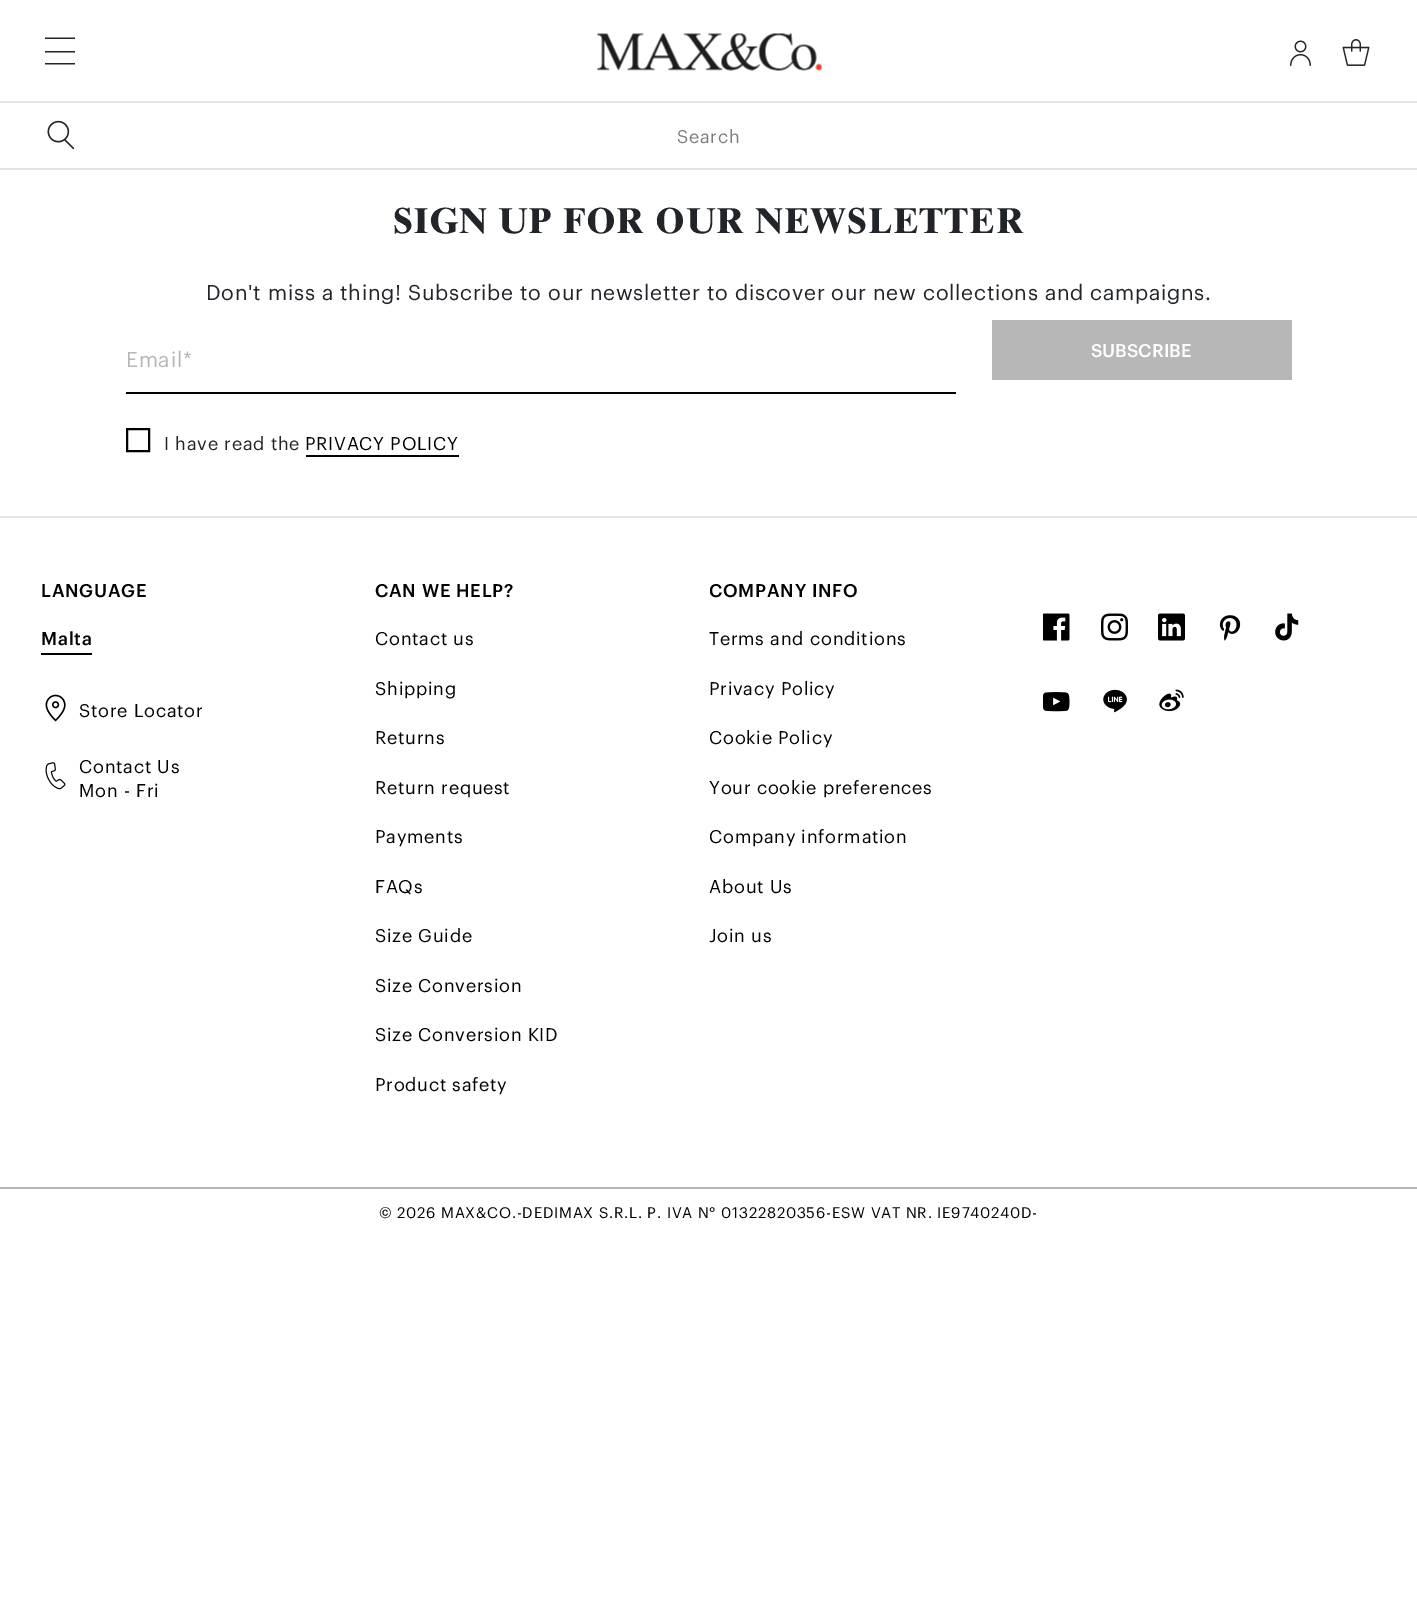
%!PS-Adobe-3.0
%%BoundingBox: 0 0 1417 1609
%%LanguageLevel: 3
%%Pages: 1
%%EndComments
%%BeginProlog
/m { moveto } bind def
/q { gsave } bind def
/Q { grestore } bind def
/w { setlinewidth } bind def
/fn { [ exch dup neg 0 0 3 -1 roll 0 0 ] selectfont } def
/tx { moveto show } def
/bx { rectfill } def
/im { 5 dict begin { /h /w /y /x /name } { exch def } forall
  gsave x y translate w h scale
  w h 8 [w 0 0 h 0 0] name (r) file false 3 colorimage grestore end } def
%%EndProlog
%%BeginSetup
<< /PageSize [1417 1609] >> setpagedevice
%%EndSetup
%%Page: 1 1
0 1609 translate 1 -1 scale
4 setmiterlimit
1 setgray
0 0 1417 1609 bx
(image0.raw) 45 37 30 28 im
(image1.raw) 597 33 225 38 im
(image2.raw) 1290 40 21 26 im
(image3.raw) 1342 39 28 27 im
0.898 setgray
0 101 1417 2 bx
(image4.raw) 47 120 28 30 im
/Graphik-Regular 18 fn
0.49 0.49 0.494 setrgbcolor
677 143 m 0.75 0 (Search) ashow
0.898 setgray
0 168 1417 2 bx
0 516 1417 2 bx
/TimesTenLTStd-Bold 36 fn
0.129 0.145 0.161 setrgbcolor
393 233 m 0.75 0 (SIGN UP FOR OUR NEWSLETTER) ashow
/Graphik-Regular 21 fn
206 300 m 0.75 0 (Don't miss a thing! Subscribe to our newsletter to discover our new collections and campaigns.) ashow
0.718 setgray
126 367 m 0.75 0 (Email*) ashow
0 setgray
126 392 830 2 bx
0.718 setgray
992 320 300 60 bx
/Graphik-Medium 18 fn
1 setgray
(SUBSCRIBE) 1091 357 tx
0 setgray
2 w
127 429 22 22 rectstroke
/Graphik-Regular 18 fn
0.129 0.145 0.161 setrgbcolor
164 450 m 0.75 0 (I have read the) ashow
0 setgray
305 450 m 0.75 0 (PRIVACY POLICY) ashow
306 455 153 2 bx
/Graphik-Medium 18 fn
41 597 m 0.75 0 (LANGUAGE) ashow
41 645 m 0.75 0 (Malta) ashow
41 653 51 2 bx
(image5.raw) 45 694 21 28 im
/Graphik-Regular 18 fn
79 717 m 0.75 0 (Store Locator) ashow
(image6.raw) 45 762 21 28 im
79 773 m 0.75 0 (Contact Us) ashow
79 797 m 0.75 0 (Mon - Fri) ashow
/Graphik-Medium 18 fn
375 597 m 0.75 0 (CAN WE HELP?) ashow
/Graphik-Regular 18 fn
375 645 m 0.75 0 (Contact us) ashow
375 695 m 0.75 0 (Shipping) ashow
375 744 m 0.75 0 (Returns) ashow
375 794 m 0.75 0 (Return request) ashow
375 843 m 0.75 0 (Payments) ashow
375 893 m 0.75 0 (FAQs) ashow
375 942 m 0.75 0 (Size Guide) ashow
375 992 m 0.75 0 (Size Conversion) ashow
375 1041 m 0.75 0 (Size Conversion KID) ashow
375 1091 m 0.75 0 (Product safety) ashow
q
710 578 333 558 rectclip
/Graphik-Medium 18 fn
709 597 m 0.75 0 (COMPANY INFO) ashow
Q
709 645 m 0.75 0 (Terms and conditions) ashow
709 695 m 0.75 0 (Privacy Policy) ashow
q
710 578 333 558 rectclip
709 744 m 0.75 0 (Cookie Policy) ashow
Q
709 794 m 0.75 0 (Your cookie preferences) ashow
q
710 578 333 558 rectclip
709 843 m 0.75 0 (Company information) ashow
Q
709 893 m 0.75 0 (About Us) ashow
709 942 m 0.75 0 (Join us) ashow
(image7.raw) 1043 613 27 28 im
(image8.raw) 1101 613 27 28 im
(image9.raw) 1158 613 27 28 im
(image10.raw) 1219 615 22 26 im
(image11.raw) 1275 613 24 28 im
(image12.raw) 1043 692 27 20 im
(image13.raw) 1103 689 24 24 im
(image14.raw) 1159 689 25 23 im
0.718 setgray
0 1187 1417 2 bx
/Graphik-Regular 15 fn
0 setgray
379 1218 m 0.75 0 (© 2026 MAX&CO.-DEDIMAX S.R.L. P. IVA N° 01322820356-ESW VAT NR. IE9740240D-) ashow
showpage
%%EOF
